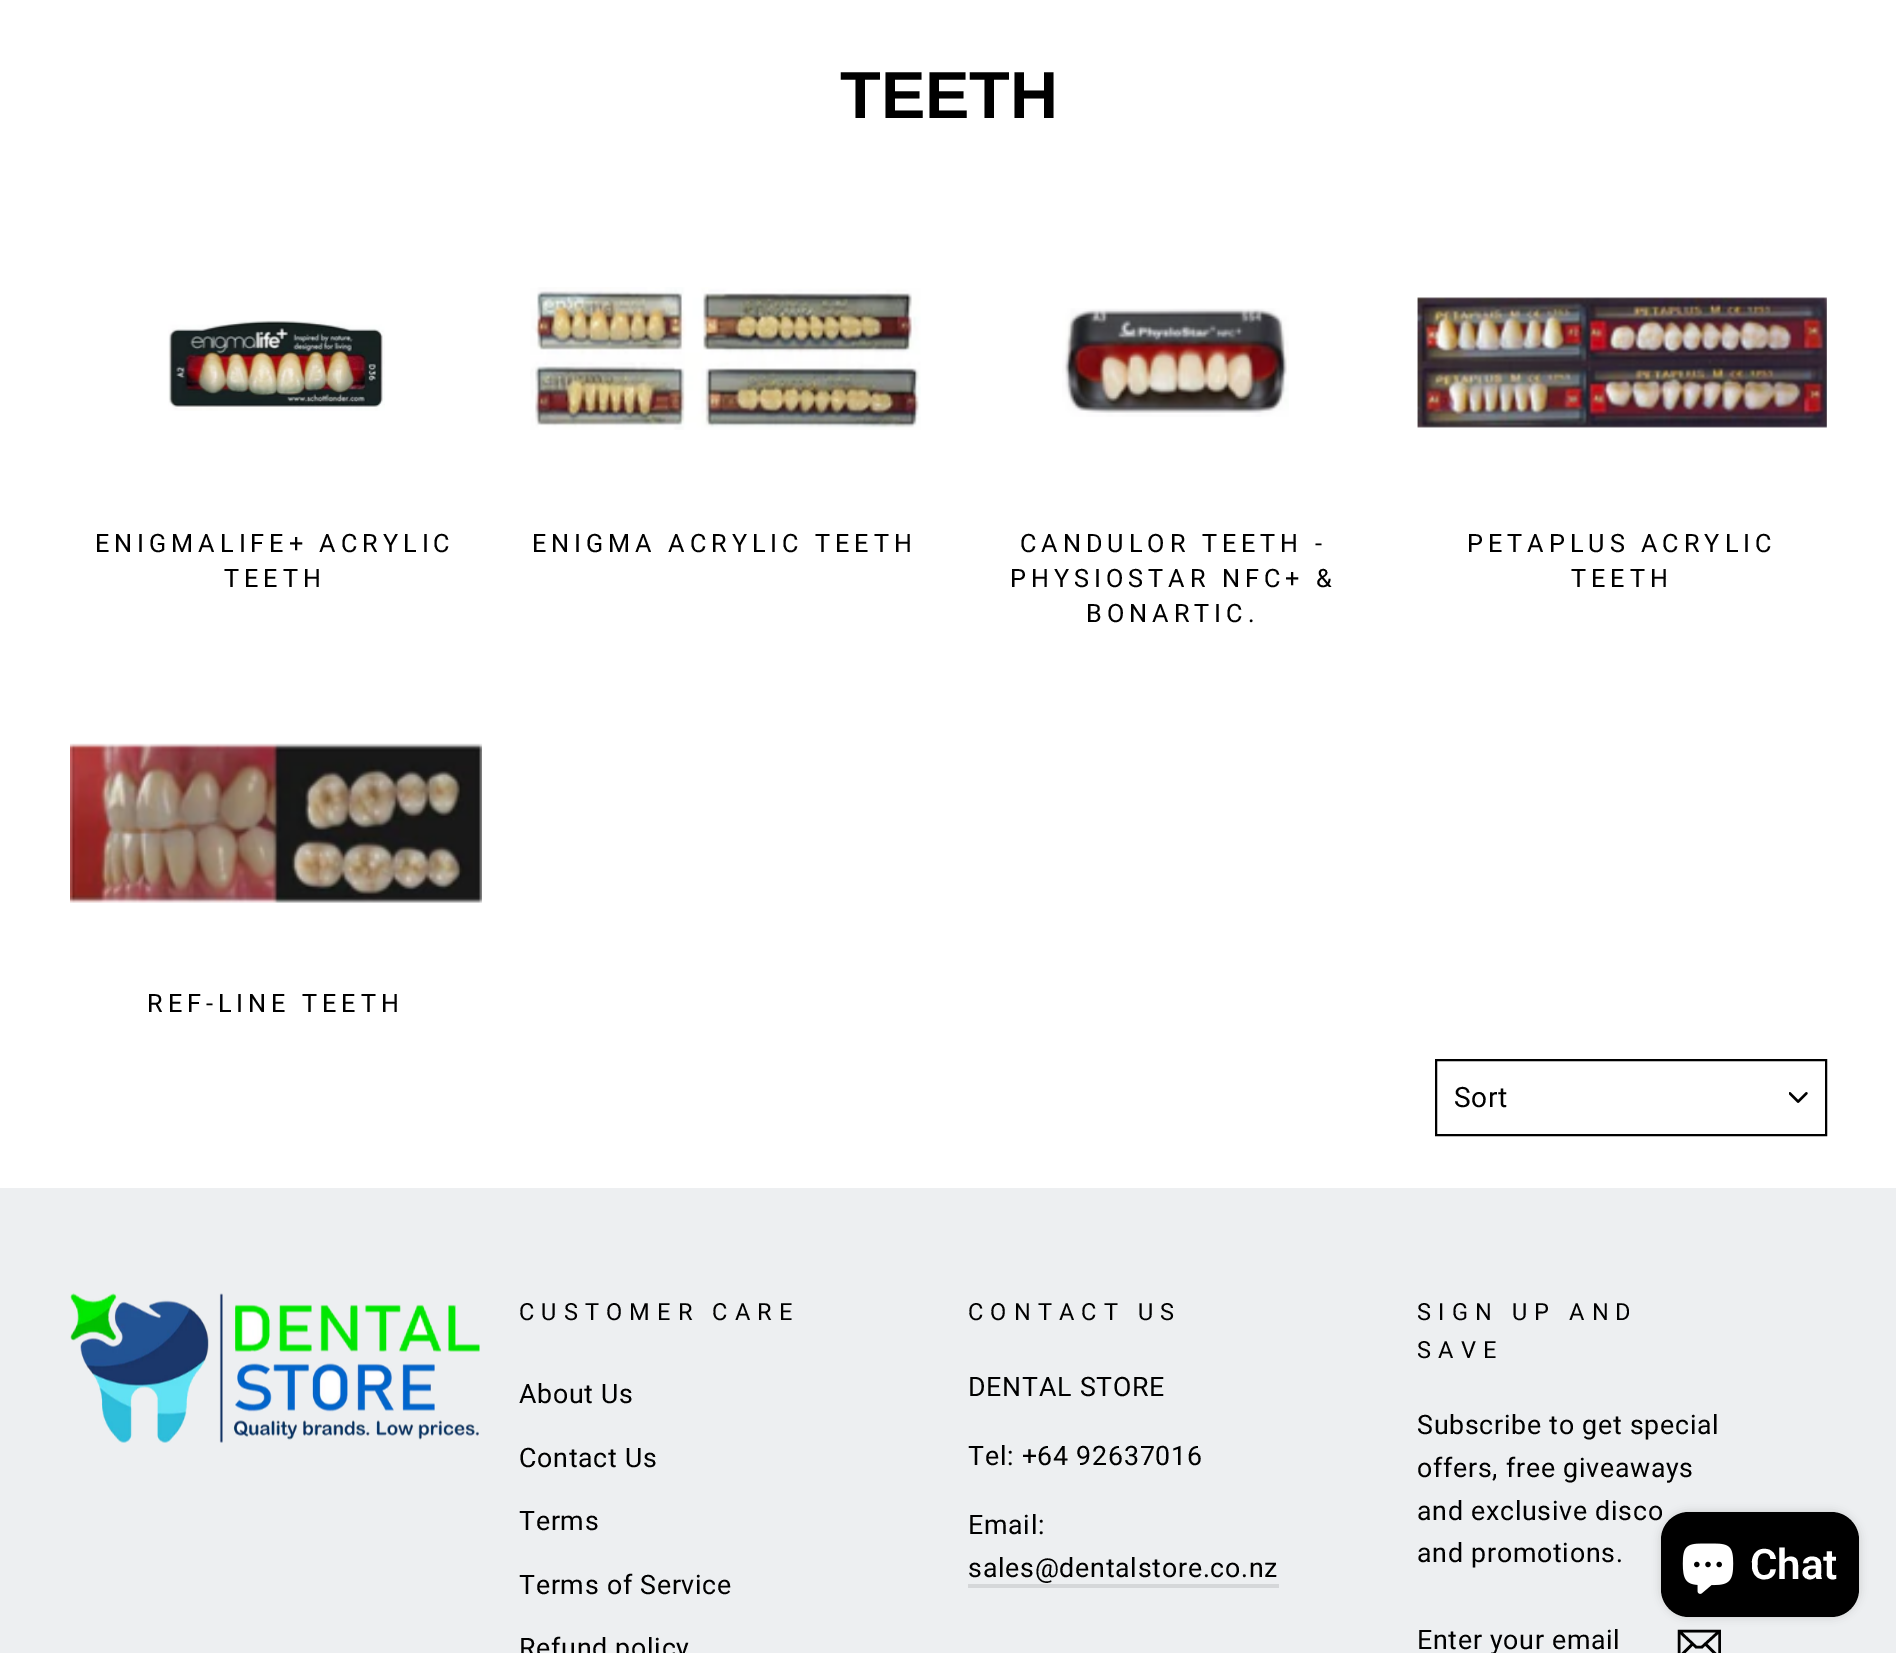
%!PS-Adobe-3.0
%%BoundingBox: 0 0 1896 1653
%%LanguageLevel: 3
%%Pages: 1
%%EndComments
%%BeginProlog
/m { moveto } bind def
/l { lineto } bind def
/h { closepath } bind def
/f { fill } bind def
/S { stroke } bind def
/w { setlinewidth } bind def
/fn { [ exch dup neg 0 0 3 -1 roll 0 0 ] selectfont } def
/tx { moveto show } def
/bx { rectfill } def
/al { dup .setfillconstantalpha .setstrokeconstantalpha } def
/rr { 5 dict begin { /r /h /w /y /x } { exch def } forall
  x r add y moveto x w add y 2 copy h add r arct x w add y h add x 1 index r arct
  x y h add x y r arct x y 2 copy exch w add exch r arct closepath end } def
/sh { 12 dict begin { /a /b /q /h /w /y /x } { exch def } forall gsave /was 0 def
  9 -2 -9 { dup b mul 4 div /e exch def 1 sub .425 mul 2.718 exch exp 1 add a .99 .min exch div /now exch def
    1 1 now sub 1 was sub div sub al /was now def
    w h .min e 2 mul add 0 gt { x e sub y e sub w e 2 mul add h e 2 mul add
      q e add b .6 mul add w h .min 2 div e add .min 0 .max rr fill } if } for grestore end } def
/im { 5 dict begin { /h /w /y /x /name } { exch def } forall
  gsave x y translate w h scale
  w h 8 [w 0 0 h 0 0] name (r) file false 3 colorimage grestore end } def
%%EndProlog
%%BeginSetup
<< /PageSize [1896 1653] /PageUsesTransparency true >> setpagedevice
%%EndSetup
%%Page: 1 1
0 .pushpdf14devicefilter
0 1653 translate 1 -1 scale
4 setmiterlimit
1 setgray
0 0 1896 1653 bx
/Arimo-Bold 66.5 fn
0 setgray
(TEETH) 840 118 tx
(image0.raw) 168 320 217 91 im
/Roboto-Regular 25.25 fn
95 552 m 5 0 (ENIGMALIFE+ ACRYLIC) ashow
224 587 m 5 0 (TEETH) ashow
(image1.raw) 530 287 391 143 im
532 552 m 5 0 (ENIGMA ACRYLIC TEETH) ashow
(image2.raw) 1062 308 227 109 im
1020 552 m 5 0 (CANDULOR TEETH -) ashow
1010 587 m 5 0 (PHYSIOSTAR NFC+ &) ashow
1086 622 m 5 0 (BONARTIC.) ashow
(image3.raw) 1417 297 410 131 im
1467 552 m 5 0 (PETAPLUS ACRYLIC) ashow
1571 587 m 5 0 (TEETH) ashow
(image4.raw) 70 743 412 160 im
147 1012 m 5 0 (REF-LINE TEETH) ashow
(image5.raw) 1789 1092 19 11 im
2 w
1436 1060 390 75 rectstroke
/Roboto-Regular 28 fn
1454 1107 m 0.5 0 (Sort) ashow
0.929 0.937 0.945 setrgbcolor
0 1188 1896 465 bx
(image6.raw) 70 1293 410 150 im
/Roboto-Regular 23.6 fn
0 setgray
519 1320 m 7.1 0 (CUSTOMER CARE) ashow
/Roboto-Regular 26.75 fn
519 1403 m 0.75 0 (About Us) ashow
519 1467 m 0.75 0 (Contact Us) ashow
519 1530 m 0.75 0 (Terms) ashow
519 1594 m 0.75 0 (Terms of Service) ashow
519 1657 m 0.75 0 (Refund policy) ashow
/Roboto-Regular 23.6 fn
968 1320 m 7.1 0 (CONTACT US) ashow
/Roboto-Regular 26.75 fn
968 1396 m 0.75 0 (DENTAL STORE) ashow
968 1465 m 0.75 0 (Tel: +64 92637016) ashow
968 1534 m 0.75 0 (Email:) ashow
968 1577 m 0.75 0 (sales@dentalstore.co.nz) ashow
0.835 0.843 0.851 setrgbcolor
968 1584 311 4 bx
/Roboto-Regular 23.6 fn
0 setgray
1417 1320 m 7.1 0 (SIGN UP AND) ashow
1417 1358 m 7.1 0 (SAVE) ashow
/Roboto-Regular 26.75 fn
1417 1434 m 0.75 0 (Subscribe to get special) ashow
1417 1477 m 0.75 0 (offers, free giveaways) ashow
1417 1520 m 0.75 0 (and exclusive disco) ashow
1417 1562 m 0.75 0 (and promotions.) ashow
1417 1649 m 0.7 0 (Enter your email) ashow
2.6 w
1719.5 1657.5 m 1679 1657.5 l 1679 1631 l 1719.5 1631 l h 1679 1631 m 1696 1647 l 1702 1647 l 1719.5 1631 l 1692.5 1644 m 1679.5 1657 l 1719 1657.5 m 1705.5 1644 l S
1661 1512 198 105 28 4.5 0.15 sh
1661 1512 198 105 28 rr f
(image7.raw) 1682 1543 52 51 im
/Roboto-SemiBold 42 fn
1 setgray
(Chat) 1750 1579 tx
.poppdf14devicefilter showpage
%%EOF
